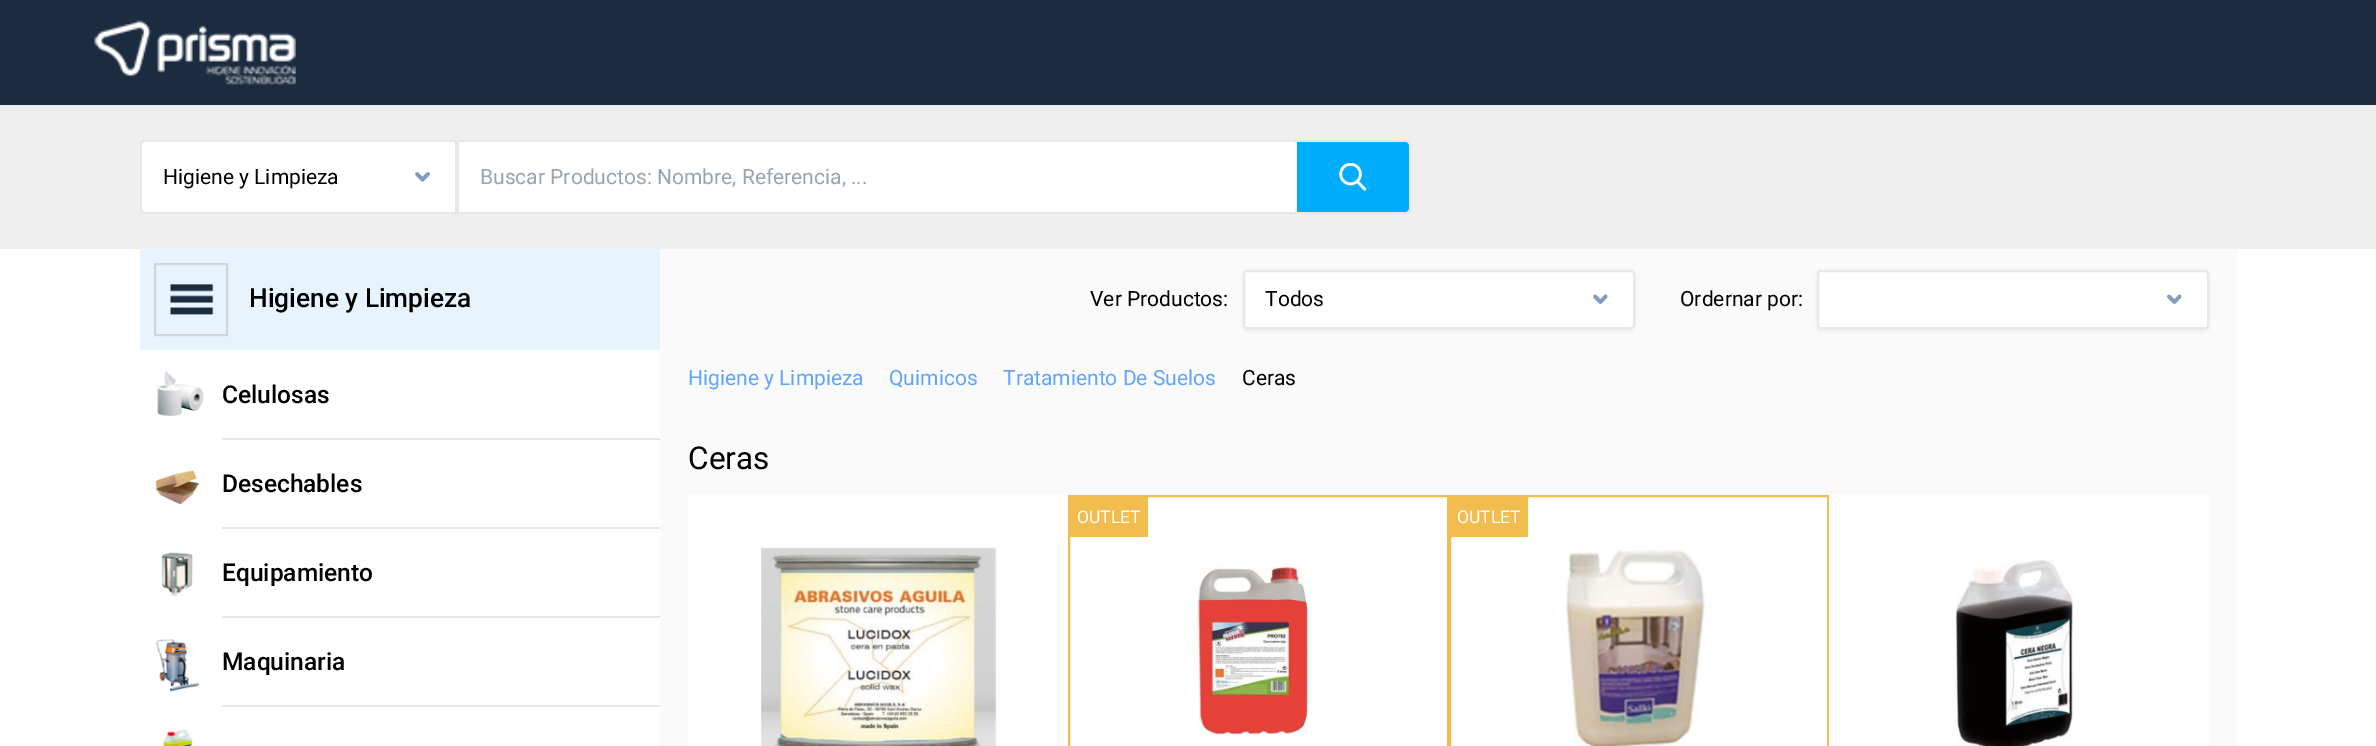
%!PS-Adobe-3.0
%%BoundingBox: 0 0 2376 746
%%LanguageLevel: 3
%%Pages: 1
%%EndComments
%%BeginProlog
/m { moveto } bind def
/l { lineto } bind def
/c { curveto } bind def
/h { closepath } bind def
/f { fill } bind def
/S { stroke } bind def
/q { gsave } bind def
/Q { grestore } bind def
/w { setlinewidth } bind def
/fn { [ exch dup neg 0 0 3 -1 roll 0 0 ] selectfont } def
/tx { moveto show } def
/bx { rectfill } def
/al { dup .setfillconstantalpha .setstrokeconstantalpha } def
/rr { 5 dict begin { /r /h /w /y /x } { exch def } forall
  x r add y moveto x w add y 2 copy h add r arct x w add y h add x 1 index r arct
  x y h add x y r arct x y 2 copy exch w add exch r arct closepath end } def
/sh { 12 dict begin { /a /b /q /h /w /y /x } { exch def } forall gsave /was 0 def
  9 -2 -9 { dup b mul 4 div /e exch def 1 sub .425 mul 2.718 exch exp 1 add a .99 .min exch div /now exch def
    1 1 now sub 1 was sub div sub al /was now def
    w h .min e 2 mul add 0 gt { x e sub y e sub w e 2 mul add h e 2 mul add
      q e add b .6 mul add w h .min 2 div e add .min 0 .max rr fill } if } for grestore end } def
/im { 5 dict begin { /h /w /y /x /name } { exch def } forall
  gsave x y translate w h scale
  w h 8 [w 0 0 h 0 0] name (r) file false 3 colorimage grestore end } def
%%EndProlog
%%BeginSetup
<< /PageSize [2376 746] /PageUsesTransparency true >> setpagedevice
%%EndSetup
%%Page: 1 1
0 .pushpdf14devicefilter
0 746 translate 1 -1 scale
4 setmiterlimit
1 setgray
0 0 2376 746 bx
0.11 0.173 0.251 setrgbcolor
0 0 2376 105 bx
(image0.raw) 94 20 202 65 im
0.937 setgray
0 105 2376 144 bx
0.898 0.906 0.922 setrgbcolor
2 w
141 141 1269 72 3 rr S
1 setgray
146 142 m 455 142 l 455 212 l 146 212 l 144 212 142 210 142 208 c 142 146 l 142 144 144 142 146 142 c h f
0.898 0.906 0.922 setrgbcolor
455 142 4 70 bx
/Roboto-Regular 21 fn
0 setgray
(Higiene y Limpieza) 163 184 tx
0.502 0.612 0.749 setrgbcolor
3.6 w
1 setlinecap
417 174 m 422.5 179.5 l S
q
429.5 171.5 m 429.5 182 l 414 182 l 414 171.5 l h clip newpath
428 174 m 422.5 179.5 l S
Q
1 setgray
459 142 838 70 bx
0.612 0.639 0.686 setrgbcolor
(Buscar Productos: Nombre, Referencia, ...) 480 184 tx
0 0.678 0.988 setrgbcolor
1297 142 m 1405 142 l 1407 142 1409 144 1409 146 c 1409 208 l 1409 210 1407 212 1405 212 c 1297 212 l h f
(image1.raw) 1339 163 28 28 im
0.91 0.957 0.992 setrgbcolor
140 249 520 101 bx
0.82 0.835 0.859 setrgbcolor
2 w
0 setlinecap
155 264 72 71 rectstroke
(image2.raw) 170 284 44 31 im
/Roboto-Medium 26.25 fn
0 setgray
(Higiene y Limpieza) 249 307 tx
(image3.raw) 157 371 47 46 im
/Roboto-Medium 24.5 fn
(Celulosas) 222 403 tx
0.898 0.906 0.922 setrgbcolor
222 438 438 2 bx
(image4.raw) 155 470 45 35 im
0 setgray
(Desechables) 222 492 tx
0.898 0.906 0.922 setrgbcolor
222 527 438 2 bx
(image5.raw) 161 552 32 45 im
0 setgray
(Equipamiento) 222 581 tx
0.898 0.906 0.922 setrgbcolor
222 616 438 2 bx
(image6.raw) 155 639 45 53 im
0 setgray
(Maquinaria) 222 670 tx
0.898 0.906 0.922 setrgbcolor
222 705 438 2 bx
(image7.raw) 163 729 30 17 im
0.98 setgray
660 249 1577 497 bx
/Roboto-Regular 21 fn
0 setgray
(Ver Productos:) 1090 306 tx
1243 271 392 60 4 2 0.05 sh
1 setgray
1244 271 390 57 3 rr q f Q
0.898 0.906 0.922 setrgbcolor
S
0 setgray
(Todos) 1265 306 tx
0.502 0.612 0.749 setrgbcolor
3.6 w
1 setlinecap
1595 296.5 m 1600.5 302 l 1605.5 296.5 m 1600.5 302 l S
0 setgray
(Ordernar por:) 1680 306 tx
1817 271 392 60 4 2 0.05 sh
1 setgray
1818 271 390 57 3 rr q f Q
0.898 0.906 0.922 setrgbcolor
2 w
0 setlinecap
S
0.502 0.612 0.749 setrgbcolor
3.6 w
1 setlinecap
2169 296.5 m 2174.5 302 l 2179.5 296.5 m 2174.5 302 l S
0.376 0.647 0.98 setrgbcolor
(Higiene y Limpieza) 688 385 tx
(Quimicos) 889 385 tx
(Tratamiento De Suelos) 1003 385 tx
0 setgray
(Ceras) 1242 385 tx
/Roboto-Regular 31.5 fn
(Ceras) 688 469 tx
1 setgray
688 495 380 251 bx
(image8.raw) 761 547 236 199 im
1069 496 m 1448 496 l 1448 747 l 1069 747 l h q f Q
0.941 0.741 0.306 setrgbcolor
2 w
0 setlinecap
S
1070 497 78 40 bx
/Roboto-Regular 17.5 fn
1 setgray
(OUTLET) 1077 523 tx
(image9.raw) 1193 563 119 172 im
1450 496 m 1828 496 l 1828 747 l 1450 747 l h q f Q
0.941 0.741 0.306 setrgbcolor
S
1451 497 77 40 bx
1 setgray
(OUTLET) 1457 523 tx
(image10.raw) 1565 549 142 197 im
1829 495 380 251 bx
(image11.raw) 1955 560 121 186 im
.poppdf14devicefilter showpage
%%EOF
